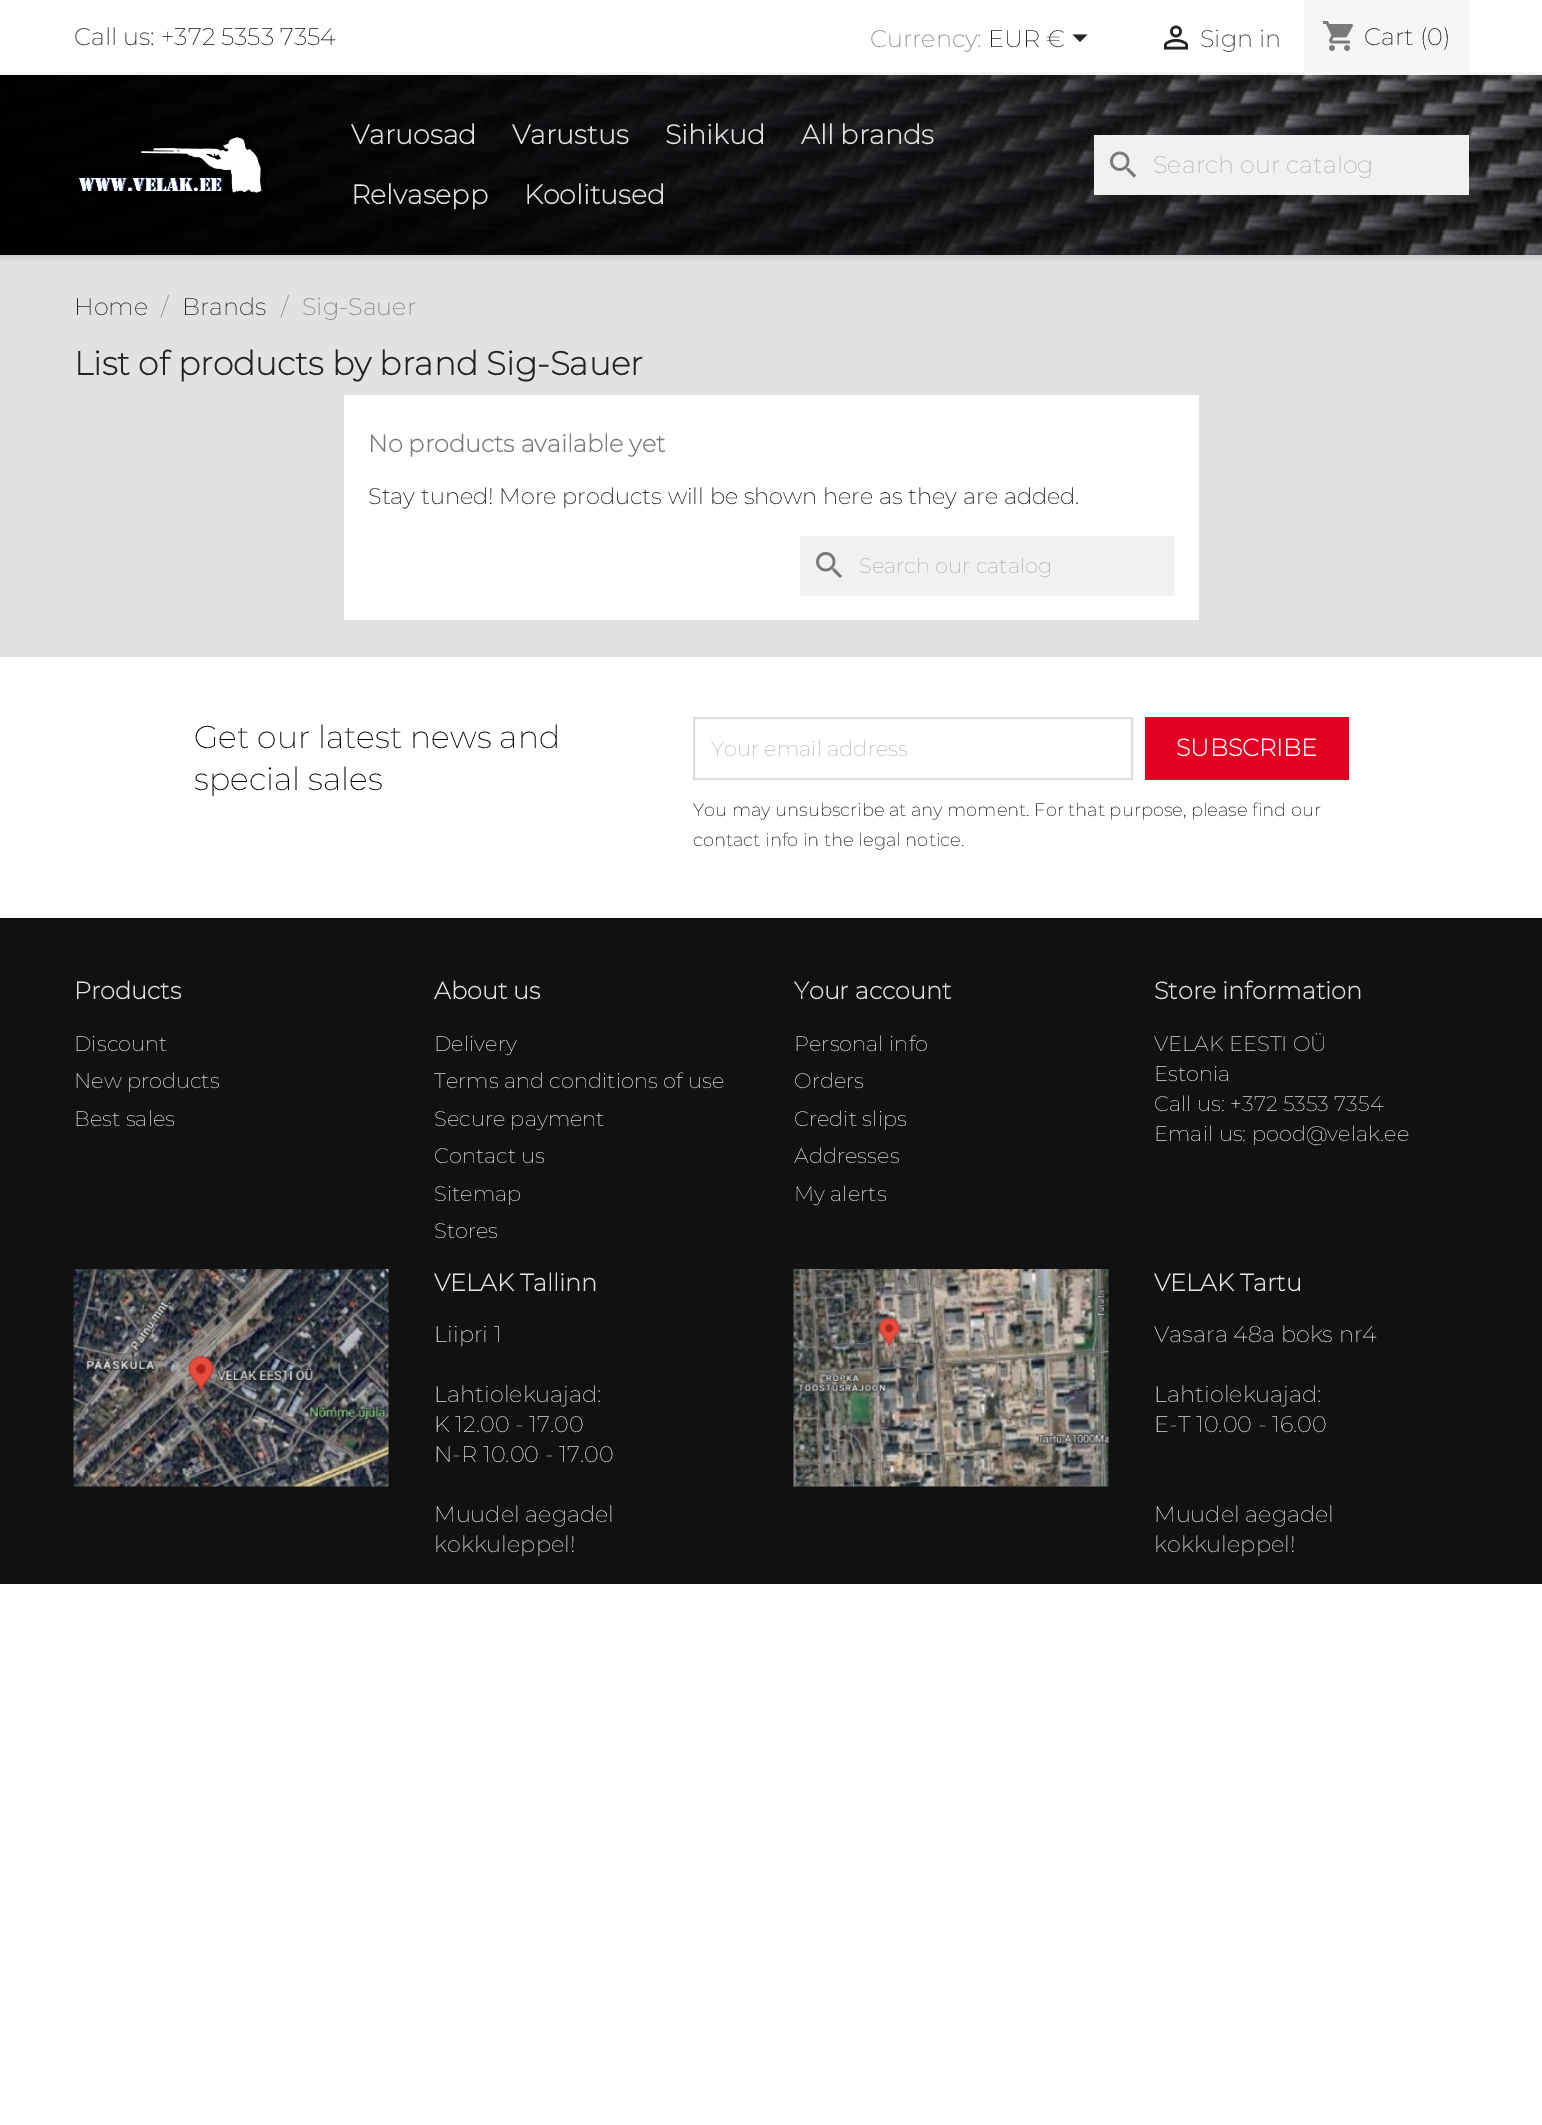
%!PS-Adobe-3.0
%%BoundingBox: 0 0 1542 2125
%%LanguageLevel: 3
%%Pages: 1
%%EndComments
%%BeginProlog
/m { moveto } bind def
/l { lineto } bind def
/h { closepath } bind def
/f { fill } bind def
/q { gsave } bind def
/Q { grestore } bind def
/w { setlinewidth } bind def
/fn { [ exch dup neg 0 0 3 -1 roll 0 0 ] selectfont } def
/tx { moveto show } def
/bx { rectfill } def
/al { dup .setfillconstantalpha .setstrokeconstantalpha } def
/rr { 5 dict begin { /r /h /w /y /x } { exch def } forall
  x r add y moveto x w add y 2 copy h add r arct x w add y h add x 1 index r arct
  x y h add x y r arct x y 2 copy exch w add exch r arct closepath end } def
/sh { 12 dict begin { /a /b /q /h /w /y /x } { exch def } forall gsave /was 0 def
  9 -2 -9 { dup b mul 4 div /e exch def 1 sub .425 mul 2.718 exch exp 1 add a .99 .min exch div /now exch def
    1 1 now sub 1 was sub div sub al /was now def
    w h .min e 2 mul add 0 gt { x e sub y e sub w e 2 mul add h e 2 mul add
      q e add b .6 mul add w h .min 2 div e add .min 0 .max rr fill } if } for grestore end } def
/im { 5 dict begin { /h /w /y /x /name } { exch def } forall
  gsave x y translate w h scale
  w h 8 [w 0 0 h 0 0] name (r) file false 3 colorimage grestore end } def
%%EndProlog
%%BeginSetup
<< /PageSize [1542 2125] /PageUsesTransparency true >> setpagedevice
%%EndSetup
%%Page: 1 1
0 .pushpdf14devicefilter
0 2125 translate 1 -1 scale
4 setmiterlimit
1 setgray
0 0 1542 2125 bx
0.886 setgray
0 255 1542 402 bx
q
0 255 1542 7 rectclip
0 setgray
0 3 1542 255 0 4 0.11 sh
Q
0.965 setgray
0 72 1542 3 bx
/Montserrat-Thin 24 fn
0.067 setgray
(Call us: +372 5353 7354) 74 45 tx
0.478 setgray
(Currency:) 870 47 tx
0.137 setgray
(EUR €) 988 47 tx
1072.5 34.5 m 1087.5 34.5 l 1080 42 l h f
(image0.raw) 1163 25 26 25 im
(Sign in) 1200 47 tx
0.965 setgray
1304 0 165 72 bx
(image1.raw) 1323 21 30 30 im
0.067 setgray
(Cart \(0\)) 1364 45 tx
(image2.raw) 0 75 1542 180 im
(image3.raw) 79 137 188 60 im
/Montserrat-Bold 27 fn
0.886 setgray
(Varuosad) 351 144 tx
(Varustus) 512 144 tx
(Sihikud) 665 144 tx
(All brands) 801 144 tx
(Relvasepp) 351 204 tx
(Koolitused) 524 204 tx
0.945 setgray
1094 135 375 60 bx
(image4.raw) 1110 151 27 27 im
/Montserrat-Thin 24 fn
0.694 setgray
(Search our catalog) 1153 173 tx
0.137 setgray
(Home) 74 315 tx
0.478 setgray
(/) 161 315 tx
0.137 setgray
(Brands) 182 315 tx
0.478 setgray
(/) 281 315 tx
(Sig-Sauer) 302 315 tx
/Montserrat-Bold 33 fn
0.137 setgray
(List of products by brand Sig-Sauer) 74 375 tx
1 setgray
344 395 855 225 bx
/Montserrat-Bold 24 fn
0.478 setgray
(No products available yet) 368 452 tx
/Montserrat-Thin 22.5 fn
0 setgray
(Stay tuned! More products will be shown here as they are added.) 368 504 tx
0.945 setgray
800 536 375 60 bx
(image5.raw) 816 552 27 26 im
/Montserrat-Thin 21 fn
0.694 setgray
(Search our catalog) 859 573 tx
/Montserrat-Thin 31.5 fn
0 setgray
(Get our latest news and) 194 748 tx
(special sales) 194 790 tx
0.867 setgray
2 w
694 718 438 61 rectstroke
/Montserrat-Thin 21 fn
0.718 setgray
(Your email address) 711 756 tx
0.89 0 0.133 setrgbcolor
1145 717 204 63 bx
/Montserrat-Bold 24 fn
1 setgray
(SUBSCRIBE) 1176 756 tx
/Montserrat-Thin 18 fn
0 setgray
(You may unsubscribe at any moment. For that purpose, please find our) 693 816 tx
(contact info in the legal notice.) 693 846 tx
0.067 setgray
0 918 1542 666 bx
/Montserrat-Bold 24 fn
0.886 setgray
(Products) 74 999 tx
/Montserrat-Thin 21 fn
(Discount) 74 1051 tx
(New products) 74 1088 tx
(Best sales) 74 1126 tx
/Montserrat-Bold 24 fn
(About us) 434 999 tx
/Montserrat-Thin 21 fn
(Delivery) 434 1051 tx
(Terms and conditions of use) 434 1088 tx
(Secure payment) 434 1126 tx
(Contact us) 434 1163 tx
(Sitemap) 434 1201 tx
(Stores) 434 1238 tx
/Montserrat-Bold 24 fn
(Your account) 794 999 tx
/Montserrat-Thin 21 fn
(Personal info) 794 1051 tx
(Orders) 794 1088 tx
(Credit slips) 794 1126 tx
(Addresses) 794 1163 tx
(My alerts) 794 1201 tx
/Montserrat-Bold 24 fn
(Store information) 1154 999 tx
/Montserrat-Thin 21 fn
(VELAK EESTI OÜ) 1154 1051 tx
(Estonia) 1154 1081 tx
(Call us: +372 5353 7354) 1154 1111 tx
(Email us: pood@velak.ee) 1154 1141 tx
(image6.raw) 73 1269 316 218 im
/Montserrat-Bold 24 fn
(VELAK Tallinn) 434 1291 tx
/Montserrat-Thin 22.5 fn
(Liipri 1) 434 1342 tx
(Lahtiolekuajad:) 434 1402 tx
(K 12.00 - 17.00) 434 1432 tx
(N-R 10.00 - 17.00) 434 1462 tx
(Muudel aegadel) 434 1522 tx
(kokkuleppel!) 434 1552 tx
(image7.raw) 793 1269 316 218 im
/Montserrat-Bold 24 fn
(VELAK Tartu) 1154 1291 tx
/Montserrat-Thin 22.5 fn
(Vasara 48a boks nr4) 1154 1342 tx
(Lahtiolekuajad:) 1154 1402 tx
(E-T 10.00 - 16.00) 1154 1432 tx
(Muudel aegadel) 1154 1522 tx
(kokkuleppel!) 1154 1552 tx
.poppdf14devicefilter showpage
%%EOF
